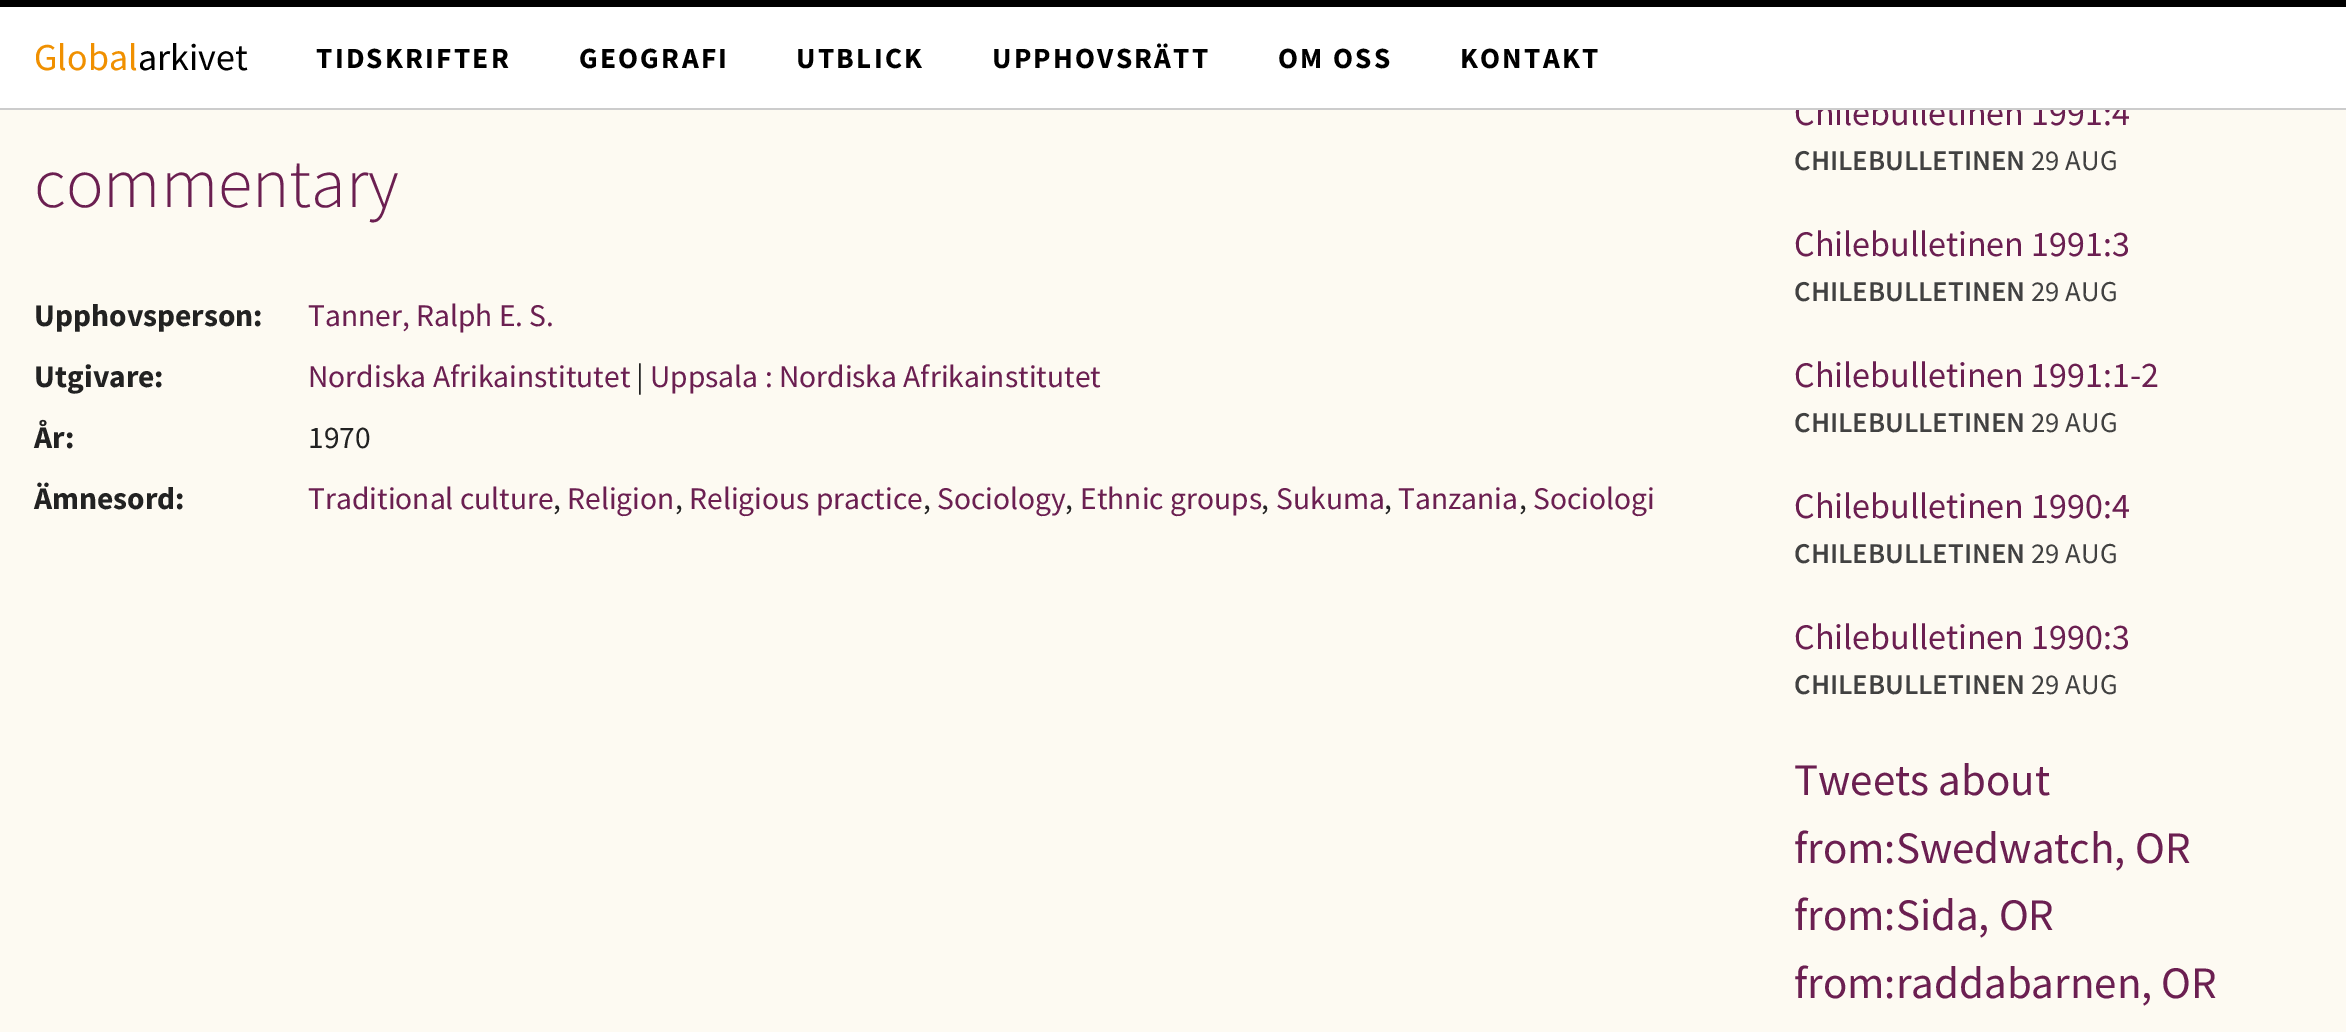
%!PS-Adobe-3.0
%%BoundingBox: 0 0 2346 1032
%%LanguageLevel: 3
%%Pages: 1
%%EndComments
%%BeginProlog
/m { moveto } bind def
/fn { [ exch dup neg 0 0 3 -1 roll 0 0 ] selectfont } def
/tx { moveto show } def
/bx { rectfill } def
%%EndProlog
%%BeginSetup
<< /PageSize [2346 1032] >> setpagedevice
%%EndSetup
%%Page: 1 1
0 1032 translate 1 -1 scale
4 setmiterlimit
0.992 0.98 0.949 setrgbcolor
0 0 2346 1032 bx
/SourceSansPro-Regular 36 fn
0.42 0.122 0.318 setrgbcolor
(Chilebulletinen 1991:4) 1794 125 tx
1 setgray
0 7 2346 101 bx
0 setgray
0 0 2346 7 bx
0.8 setgray
0 108 2346 2 bx
/SourceSansPro-Regular 38 fn
0.941 0.565 0 setrgbcolor
(Global) 34 70 tx
0 setgray
(arkivet) 138 70 tx
/SourceSansPro-Bold 29.25 fn
316 68 m 2.25 0 (TIDSKRIFTER) ashow
579 68 m 2.25 0 (GEOGRAFI) ashow
796 68 m 2.25 0 (UTBLICK) ashow
992 68 m 2.25 0 (UPPHOVSRÄTT) ashow
1278 68 m 2.25 0 (OM OSS) ashow
1460 68 m 2.25 0 (KONTAKT) ashow
/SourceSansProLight-Light 70.5 fn
0.42 0.122 0.318 setrgbcolor
(commentary) 34 207 tx
/SourceSansPro-Bold 31.5 fn
0.133 setgray
(Upphovsperson:) 34 326 tx
/SourceSansPro-Regular 31.5 fn
0.42 0.122 0.318 setrgbcolor
(Tanner, Ralph E. S.) 308 326 tx
/SourceSansPro-Bold 31.5 fn
0.133 setgray
(Utgivare:) 34 387 tx
/SourceSansPro-Regular 31.5 fn
0.42 0.122 0.318 setrgbcolor
(Nordiska Afrikainstitutet) 308 387 tx
0.133 setgray
(|) 636 387 tx
0.42 0.122 0.318 setrgbcolor
(Uppsala : Nordiska Afrikainstitutet) 650 387 tx
/SourceSansPro-Bold 31.5 fn
0.133 setgray
(År:) 34 448 tx
/SourceSansPro-Regular 31.5 fn
(1970) 308 448 tx
/SourceSansPro-Bold 31.5 fn
(Ämnesord:) 34 509 tx
/SourceSansPro-Regular 31.5 fn
0.42 0.122 0.318 setrgbcolor
(Traditional culture) 308 509 tx
0.133 setgray
(,) 553 509 tx
0.42 0.122 0.318 setrgbcolor
(Religion) 567 509 tx
0.133 setgray
(,) 675 509 tx
0.42 0.122 0.318 setrgbcolor
(Religious practice) 689 509 tx
0.133 setgray
(,) 923 509 tx
0.42 0.122 0.318 setrgbcolor
(Sociology) 937 509 tx
0.133 setgray
(,) 1065 509 tx
0.42 0.122 0.318 setrgbcolor
(Ethnic groups) 1080 509 tx
0.133 setgray
(,) 1261 509 tx
0.42 0.122 0.318 setrgbcolor
(Sukuma) 1276 509 tx
0.133 setgray
(,) 1384 509 tx
0.42 0.122 0.318 setrgbcolor
(Tanzania) 1398 509 tx
0.133 setgray
(,) 1519 509 tx
0.42 0.122 0.318 setrgbcolor
(Sociologi) 1533 509 tx
/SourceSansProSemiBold-SemiBold 28.75 fn
0.255 setgray
(CHILEBULLETINEN) 1794 170 tx
/SourceSansPro-Regular 28.75 fn
(29 AUG) 2031 170 tx
/SourceSansPro-Regular 36 fn
0.42 0.122 0.318 setrgbcolor
(Chilebulletinen 1991:3) 1794 256 tx
/SourceSansProSemiBold-SemiBold 28.75 fn
0.255 setgray
(CHILEBULLETINEN) 1794 301 tx
/SourceSansPro-Regular 28.75 fn
(29 AUG) 2031 301 tx
/SourceSansPro-Regular 36 fn
0.42 0.122 0.318 setrgbcolor
(Chilebulletinen 1991:1-2) 1794 387 tx
/SourceSansProSemiBold-SemiBold 28.75 fn
0.255 setgray
(CHILEBULLETINEN) 1794 432 tx
/SourceSansPro-Regular 28.75 fn
(29 AUG) 2031 432 tx
/SourceSansPro-Regular 36 fn
0.42 0.122 0.318 setrgbcolor
(Chilebulletinen 1990:4) 1794 518 tx
/SourceSansProSemiBold-SemiBold 28.75 fn
0.255 setgray
(CHILEBULLETINEN) 1794 563 tx
/SourceSansPro-Regular 28.75 fn
(29 AUG) 2031 563 tx
/SourceSansPro-Regular 36 fn
0.42 0.122 0.318 setrgbcolor
(Chilebulletinen 1990:3) 1794 649 tx
/SourceSansProSemiBold-SemiBold 28.75 fn
0.255 setgray
(CHILEBULLETINEN) 1794 694 tx
/SourceSansPro-Regular 28.75 fn
(29 AUG) 2031 694 tx
/SourceSansPro-Regular 45 fn
0.42 0.122 0.318 setrgbcolor
(Tweets about) 1794 795 tx
(from:Swedwatch, OR) 1794 863 tx
(from:Sida, OR) 1794 930 tx
(from:raddabarnen, OR) 1794 998 tx
showpage
%%EOF
